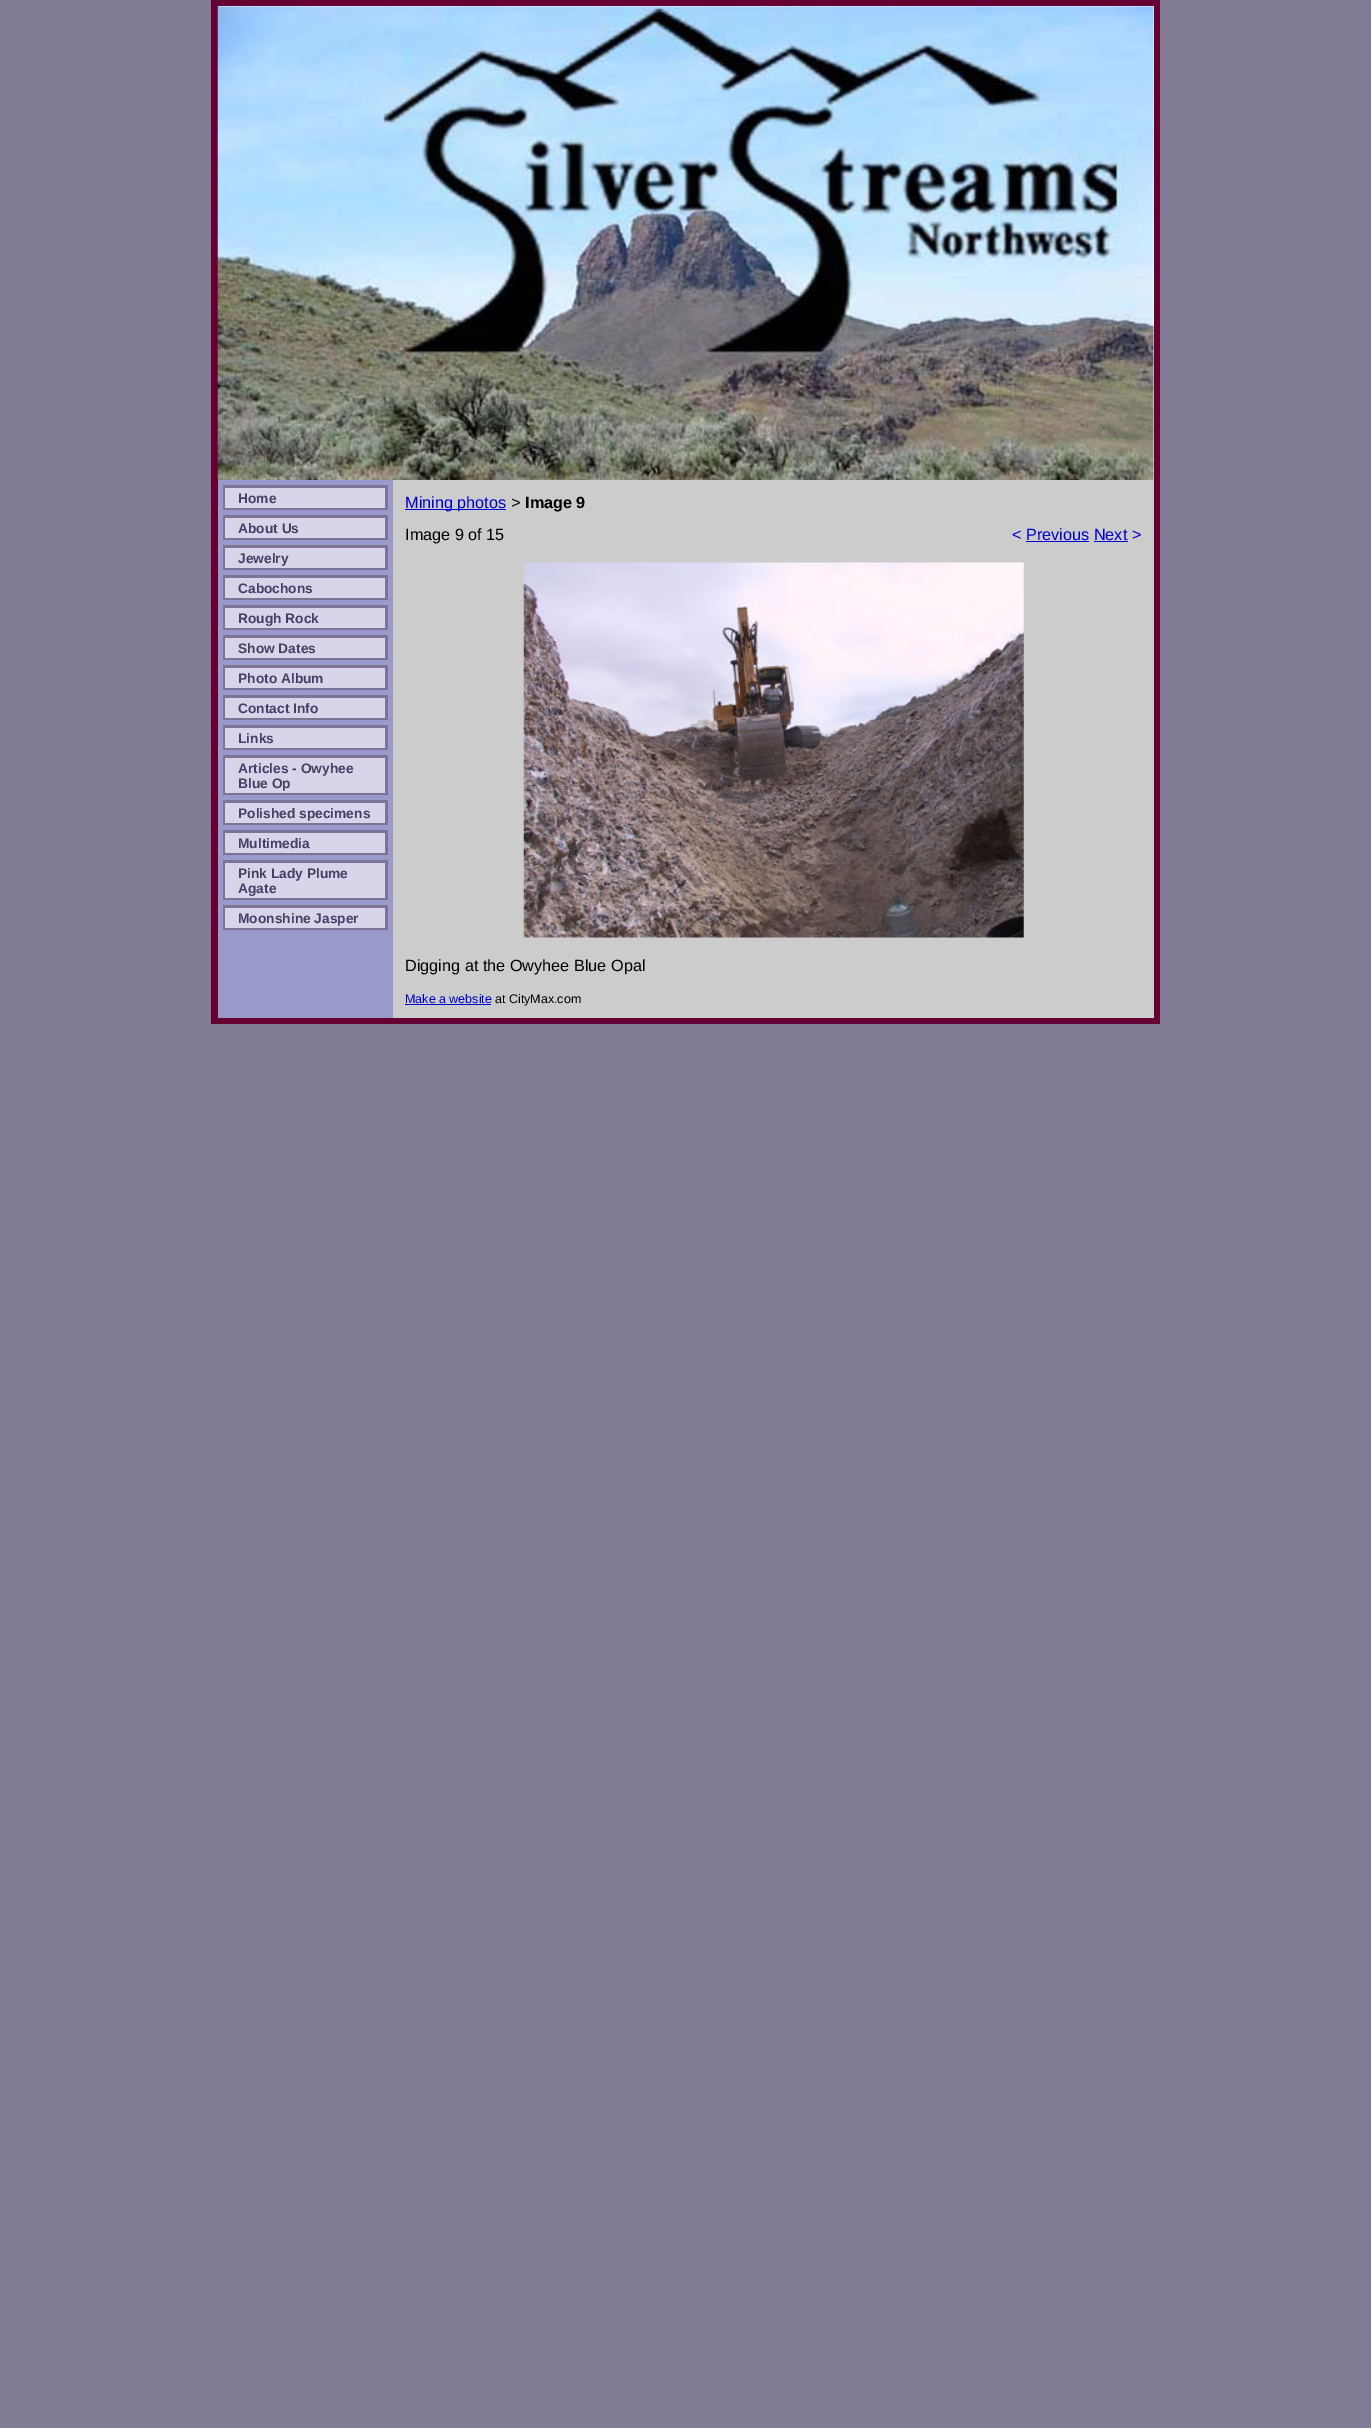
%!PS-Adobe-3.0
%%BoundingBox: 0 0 1371 2428
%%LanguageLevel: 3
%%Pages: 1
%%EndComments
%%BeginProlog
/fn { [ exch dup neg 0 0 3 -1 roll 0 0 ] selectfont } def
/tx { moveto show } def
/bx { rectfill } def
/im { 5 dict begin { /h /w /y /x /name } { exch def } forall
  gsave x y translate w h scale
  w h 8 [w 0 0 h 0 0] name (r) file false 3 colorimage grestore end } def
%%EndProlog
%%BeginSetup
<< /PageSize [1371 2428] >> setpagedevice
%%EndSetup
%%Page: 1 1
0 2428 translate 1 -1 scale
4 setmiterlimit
0.506 0.482 0.588 setrgbcolor
0 0 1371 2428 bx
0.4 0 0.2 setrgbcolor
211 0 949 1024 bx
1 setgray
218 6 936 474 bx
(image0.raw) 217 6 937 474 im
0.6 0.6 0.8 setrgbcolor
218 480 175 538 bx
0.482 0.455 0.588 setrgbcolor
223 485 165 25 bx
0.847 0.831 0.914 setrgbcolor
225 488 160 20 bx
/LiberationSans-Bold 13.75 fn
0.278 0.247 0.396 setrgbcolor
(Home) 238 503 tx
0.482 0.455 0.588 setrgbcolor
223 515 165 25 bx
0.847 0.831 0.914 setrgbcolor
225 518 160 20 bx
0.278 0.247 0.396 setrgbcolor
(About Us) 238 533 tx
0.482 0.455 0.588 setrgbcolor
223 545 165 25 bx
0.847 0.831 0.914 setrgbcolor
225 548 160 20 bx
0.278 0.247 0.396 setrgbcolor
(Jewelry) 238 563 tx
0.482 0.455 0.588 setrgbcolor
223 575 165 25 bx
0.847 0.831 0.914 setrgbcolor
225 578 160 20 bx
0.278 0.247 0.396 setrgbcolor
(Cabochons) 238 593 tx
0.482 0.455 0.588 setrgbcolor
223 605 165 25 bx
0.847 0.831 0.914 setrgbcolor
225 608 160 20 bx
0.278 0.247 0.396 setrgbcolor
(Rough Rock) 238 623 tx
0.482 0.455 0.588 setrgbcolor
223 635 165 25 bx
0.847 0.831 0.914 setrgbcolor
225 638 160 20 bx
0.278 0.247 0.396 setrgbcolor
(Show Dates) 238 653 tx
0.482 0.455 0.588 setrgbcolor
223 665 165 25 bx
0.847 0.831 0.914 setrgbcolor
225 668 160 20 bx
0.278 0.247 0.396 setrgbcolor
(Photo Album) 238 683 tx
0.482 0.455 0.588 setrgbcolor
223 695 165 25 bx
0.847 0.831 0.914 setrgbcolor
225 698 160 20 bx
0.278 0.247 0.396 setrgbcolor
(Contact Info) 238 713 tx
0.482 0.455 0.588 setrgbcolor
223 725 165 25 bx
0.847 0.831 0.914 setrgbcolor
225 728 160 20 bx
0.278 0.247 0.396 setrgbcolor
(Links) 238 743 tx
0.482 0.455 0.588 setrgbcolor
223 755 165 40 bx
0.847 0.831 0.914 setrgbcolor
225 758 160 35 bx
0.278 0.247 0.396 setrgbcolor
(Articles - Owyhee) 238 773 tx
(Blue Op) 238 788 tx
0.482 0.455 0.588 setrgbcolor
223 800 165 25 bx
0.847 0.831 0.914 setrgbcolor
225 803 160 20 bx
0.278 0.247 0.396 setrgbcolor
(Polished specimens) 238 818 tx
0.482 0.455 0.588 setrgbcolor
223 830 165 25 bx
0.847 0.831 0.914 setrgbcolor
225 833 160 20 bx
0.278 0.247 0.396 setrgbcolor
(Multimedia) 238 848 tx
0.482 0.455 0.588 setrgbcolor
223 860 165 40 bx
0.847 0.831 0.914 setrgbcolor
225 863 160 35 bx
0.278 0.247 0.396 setrgbcolor
(Pink Lady Plume) 238 878 tx
(Agate) 238 893 tx
0.482 0.455 0.588 setrgbcolor
223 905 165 25 bx
0.847 0.831 0.914 setrgbcolor
225 908 160 20 bx
0.278 0.247 0.396 setrgbcolor
(Moonshine Jasper) 238 923 tx
0.8 setgray
393 480 761 538 bx
0 0 0.8 setrgbcolor
405 509 101 1 bx
/LiberationSans-Regular 16.25 fn
(Mining photos) 405 508 tx
/LiberationMono-Regular 16.25 fn
0 setgray
(>) 511 508 tx
/LiberationSans-Bold 16.25 fn
(Image 9) 525 508 tx
/LiberationSans-Regular 16.25 fn
(Image 9 of 15) 405 540 tx
0 0 0.8 setrgbcolor
(< Previous Next >) 1012 540 tx
1026 541 63 1 bx
1094 541 34 1 bx
(image1.raw) 523 562 501 376 im
0 setgray
(Digging at the Owyhee Blue Opal) 405 971 tx
/LiberationSans-Regular 12.5 fn
0 0 0.8 setrgbcolor
(Make a website) 405 1003 tx
405 1004 86 1 bx
0 setgray
(at CityMax.com) 495 1003 tx
showpage
%%EOF
